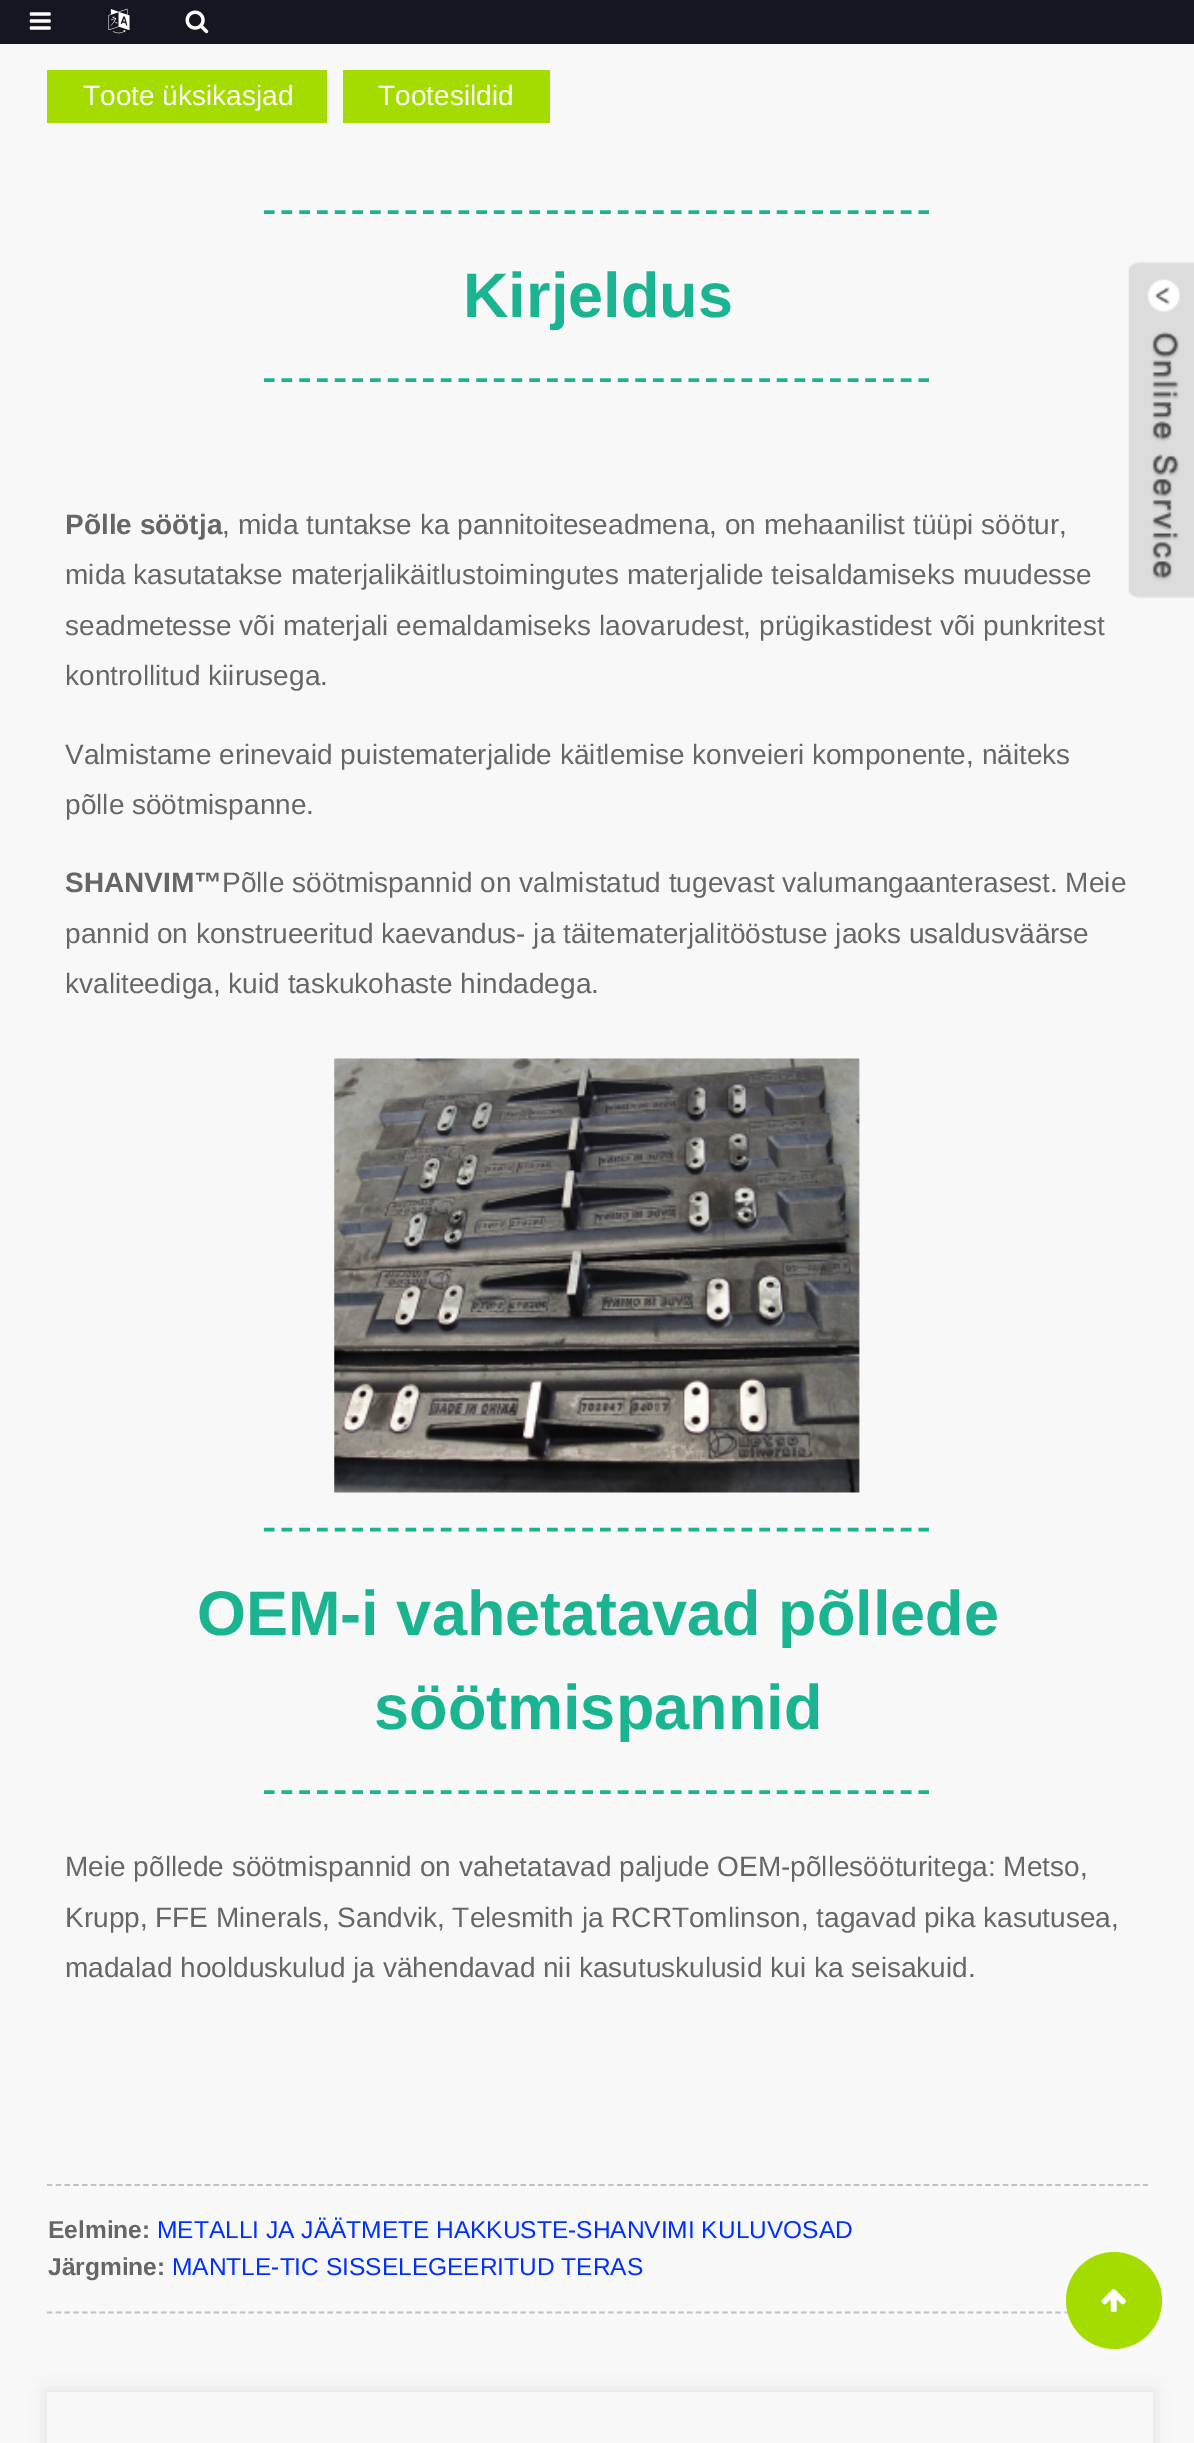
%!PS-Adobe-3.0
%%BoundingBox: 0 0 1194 2443
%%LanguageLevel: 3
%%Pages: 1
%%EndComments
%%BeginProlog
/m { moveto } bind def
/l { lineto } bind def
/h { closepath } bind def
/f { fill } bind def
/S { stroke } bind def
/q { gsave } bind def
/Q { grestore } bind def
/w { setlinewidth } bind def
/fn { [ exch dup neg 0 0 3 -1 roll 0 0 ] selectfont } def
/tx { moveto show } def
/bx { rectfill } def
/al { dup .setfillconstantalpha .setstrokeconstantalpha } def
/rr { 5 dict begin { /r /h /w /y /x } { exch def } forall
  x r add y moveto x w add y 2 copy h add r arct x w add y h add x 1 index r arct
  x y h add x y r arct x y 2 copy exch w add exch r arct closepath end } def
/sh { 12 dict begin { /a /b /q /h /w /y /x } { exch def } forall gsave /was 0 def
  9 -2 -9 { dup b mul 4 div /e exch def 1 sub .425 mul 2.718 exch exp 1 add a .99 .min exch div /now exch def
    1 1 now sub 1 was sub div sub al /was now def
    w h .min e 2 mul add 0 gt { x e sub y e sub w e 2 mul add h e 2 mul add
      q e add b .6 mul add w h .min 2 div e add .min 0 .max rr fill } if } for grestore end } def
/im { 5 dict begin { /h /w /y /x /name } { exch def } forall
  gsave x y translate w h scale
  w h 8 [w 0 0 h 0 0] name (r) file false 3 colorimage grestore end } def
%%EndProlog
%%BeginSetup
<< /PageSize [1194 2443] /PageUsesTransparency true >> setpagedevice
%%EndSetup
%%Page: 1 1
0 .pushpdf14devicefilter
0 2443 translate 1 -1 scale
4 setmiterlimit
0.973 setgray
0 0 1194 2443 bx
0.086 0.086 0.133 setrgbcolor
0 0 1194 44 bx
(image0.raw) 29 12 22 18 im
(image1.raw) 108 8 22 26 im
(image2.raw) 185 10 24 24 im
0.647 0.863 0 setrgbcolor
47 70 280 53 bx
/LiberationSans-Regular 28 fn
1 setgray
(Toote üksikasjad) 83 105 tx
0.647 0.863 0 setrgbcolor
343 70 207 53 bx
1 setgray
(Tootesildid) 378 105 tx
0.102 0.706 0.565 setrgbcolor
3.5 w
[10.5 7.19] 0 setdash
264 212 m 929 212 l S
/LiberationSans-Bold 63 fn
(Kirjeldus) 463 317 tx
264 380 m 929 380 l S
/LiberationSans-Bold 28 fn
0.4 setgray
(Põlle söötja) 65 534 tx
/LiberationSans-Regular 28 fn
(, mida tuntakse ka pannitoiteseadmena, on mehaanilist tüüpi söötur,) 222 534 tx
(mida kasutatakse materjalikäitlustoimingutes materjalide teisaldamiseks muudesse) 65 584 tx
(seadmetesse või materjali eemaldamiseks laovarudest, prügikastidest või punkritest) 65 635 tx
(kontrollitud kiirusega.) 65 685 tx
(Valmistame erinevaid puistematerjalide käitlemise konveieri komponente, näiteks) 65 764 tx
(põlle söötmispanne.) 65 814 tx
/LiberationSans-Bold 28 fn
(SHANVIM™) 65 892 tx
/LiberationSans-Regular 28 fn
(Põlle söötmispannid on valmistatud tugevast valumangaanterasest. Meie) 222 892 tx
(pannid on konstrueeritud kaevandus- ja täitematerjalitööstuse jaoks usaldusväärse) 65 943 tx
(kvaliteediga, kuid taskukohaste hindadega.) 65 993 tx
(image3.raw) 334 1058 526 435 im
0.102 0.706 0.565 setrgbcolor
264 1529.5 m 929 1529.5 l S
/LiberationSans-Bold 63 fn
(OEM-i vahetatavad põllede) 197 1635 tx
(söötmispannid) 374 1729 tx
264 1792 m 929 1792 l S
/LiberationSans-Regular 28 fn
0.4 setgray
(Meie põllede söötmispannid on vahetatavad paljude OEM-põllesööturitega: Metso,) 65 1876 tx
(Krupp, FFE Minerals, Sandvik, Telesmith ja RCRTomlinson, tagavad pika kasutusea,) 65 1927 tx
(madalad hoolduskulud ja vähendavad nii kasutuskulusid kui ka seisakuid.) 65 1977 tx
0.757 setgray
1.8 w
[5.25 3.52] 0 setdash
47 2185 m 1148 2185 l S
/LiberationSans-Bold 24.5 fn
0.4 setgray
(Eelmine:) 48 2238 tx
/LiberationSans-Regular 24.5 fn
0 0.188 1 setrgbcolor
(METALLI JA JÄÄTMETE HAKKUSTE-SHANVIMI KULUVOSAD) 157 2238 tx
/LiberationSans-Bold 24.5 fn
0.4 setgray
(Järgmine:) 48 2275 tx
/LiberationSans-Regular 24.5 fn
0 0.188 1 setrgbcolor
(MANTLE-TIC SISSELEGEERITUD TERAS) 172 2275 tx
0.757 setgray
47 2312.5 m 1148 2312.5 l S
q
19 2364 m 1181 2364 l 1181 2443 l 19 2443 l h 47 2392 m 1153 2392 l 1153 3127 l 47 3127 l h eoclip newpath
0 setgray
47 2392 1106 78 0 9 0.1 sh
Q
(image4.raw) 1128 262 66 337 im
0.647 0.863 0 setrgbcolor
1066 2252 96 97 48 rr f
0.2 al
1 setgray
7 w
[] 0 setdash
1062.5 2248.5 103 104 51.5 rr S
1 al
(image5.raw) 1101 2289 25 23 im
.poppdf14devicefilter showpage
%%EOF
